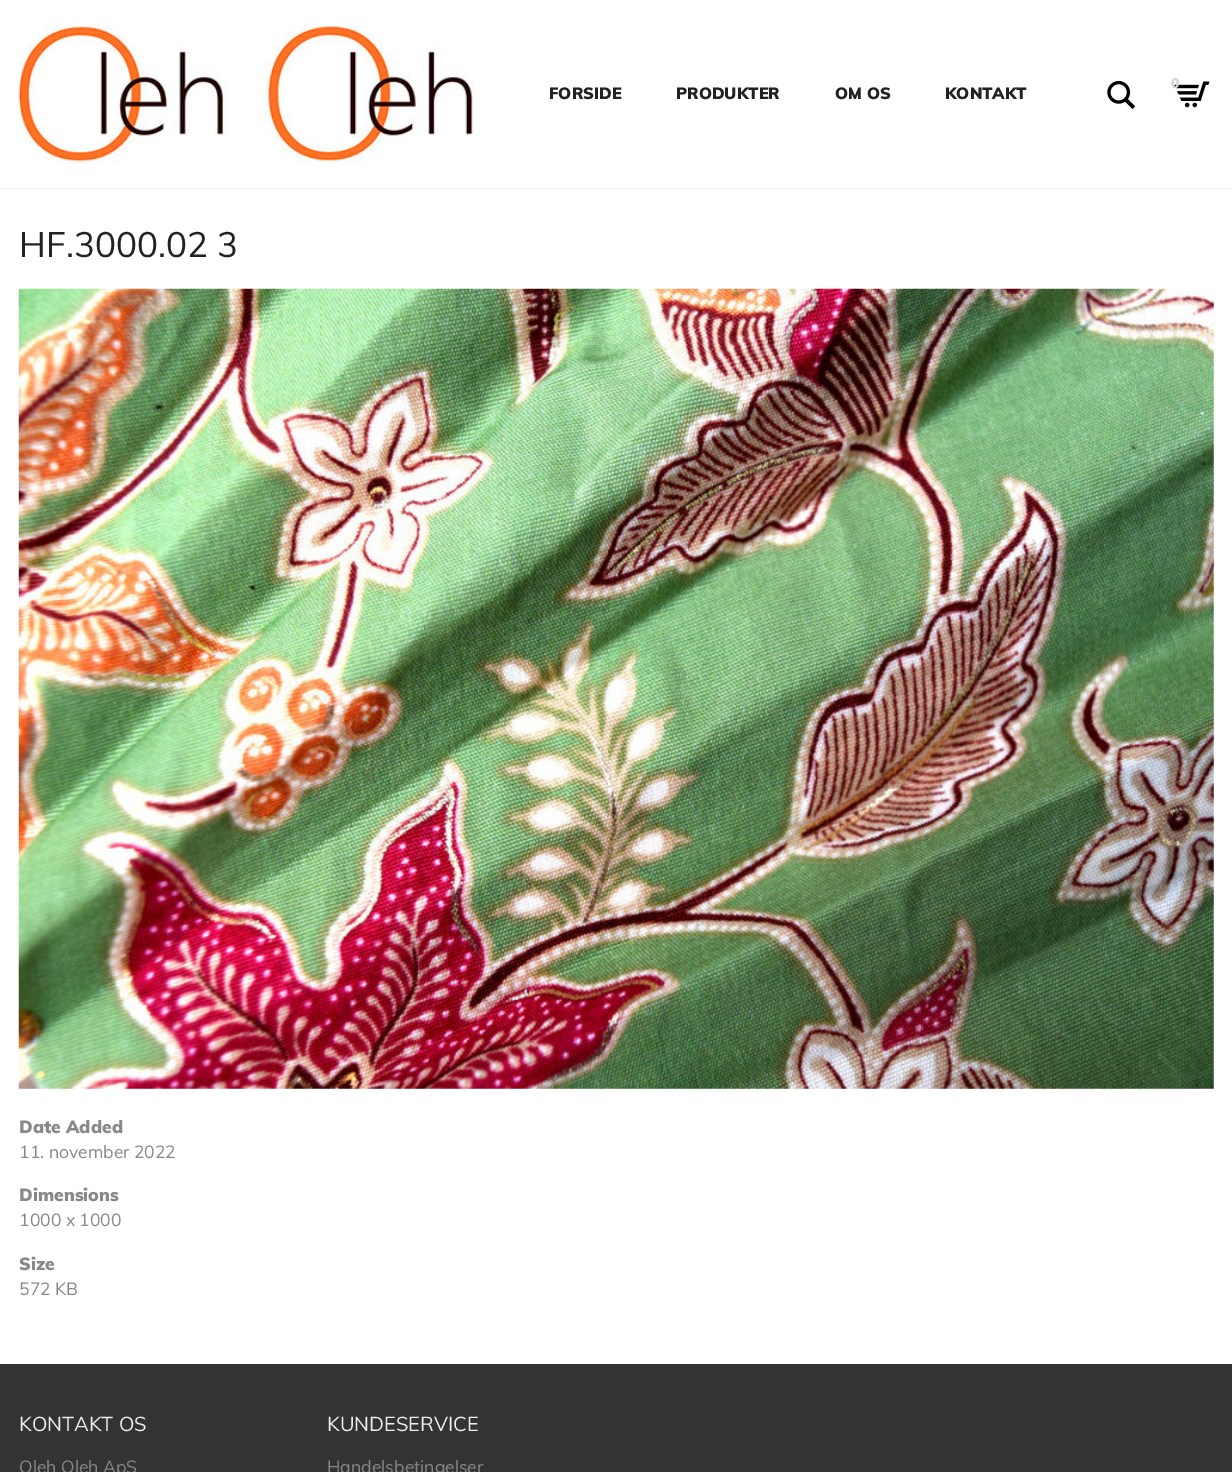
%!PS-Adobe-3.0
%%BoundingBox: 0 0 1232 1472
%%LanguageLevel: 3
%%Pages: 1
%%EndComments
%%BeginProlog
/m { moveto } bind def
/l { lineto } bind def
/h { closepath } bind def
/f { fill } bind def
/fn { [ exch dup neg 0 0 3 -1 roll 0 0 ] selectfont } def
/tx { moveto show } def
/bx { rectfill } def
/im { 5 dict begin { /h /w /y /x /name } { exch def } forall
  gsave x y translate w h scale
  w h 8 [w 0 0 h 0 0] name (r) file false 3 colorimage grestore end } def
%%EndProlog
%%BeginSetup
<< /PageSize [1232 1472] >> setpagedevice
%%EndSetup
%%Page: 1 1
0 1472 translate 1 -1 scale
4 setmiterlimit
1 setgray
0 0 1232 1472 bx
0.949 setgray
0 188 m 0 189 l 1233 189 l 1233 1 l 1232 1 l 1232 188 l h f
(image0.raw) 18 25 456 137 im
(image1.raw) 1107 80 29 29 im
(image2.raw) 1174 81 36 27 im
/Muli-Black 14 fn
0.835 setgray
(0) 1171 88 tx
/Muli-Black 16.25 fn
0.133 setgray
(FORSIDE) 549 99 tx
(PRODUKTER) 676 99 tx
(OM OS) 835 99 tx
(KONTAKT) 945 99 tx
/Muli-Regular 35 fn
(HF.3000.02 3) 19 257 tx
0.98 setgray
19 289 1195 800 bx
(image3.raw) 18 288 1196 801 im
/Muli-Black 17.5 fn
0.533 setgray
(Date Added) 19 1133 tx
/Muli-Regular 17.5 fn
(11. november 2022) 19 1158 tx
/Muli-Black 17.5 fn
(Dimensions) 19 1201 tx
/Muli-Regular 17.5 fn
(1000 x 1000) 19 1226 tx
/Muli-Black 17.5 fn
(Size) 19 1270 tx
/Muli-Regular 17.5 fn
(572 KB) 19 1295 tx
0.2 setgray
0 1364 1232 108 bx
/Muli-Regular 20 fn
0.933 setgray
(KONTAKT OS) 19 1431 tx
/Muli-Regular 17.5 fn
0.533 setgray
(Oleh Oleh ApS) 19 1473 tx
/Muli-Regular 20 fn
0.933 setgray
(KUNDESERVICE) 327 1431 tx
/Muli-Regular 17.5 fn
0.533 setgray
(Handelsbetingelser) 327 1473 tx
showpage
%%EOF
